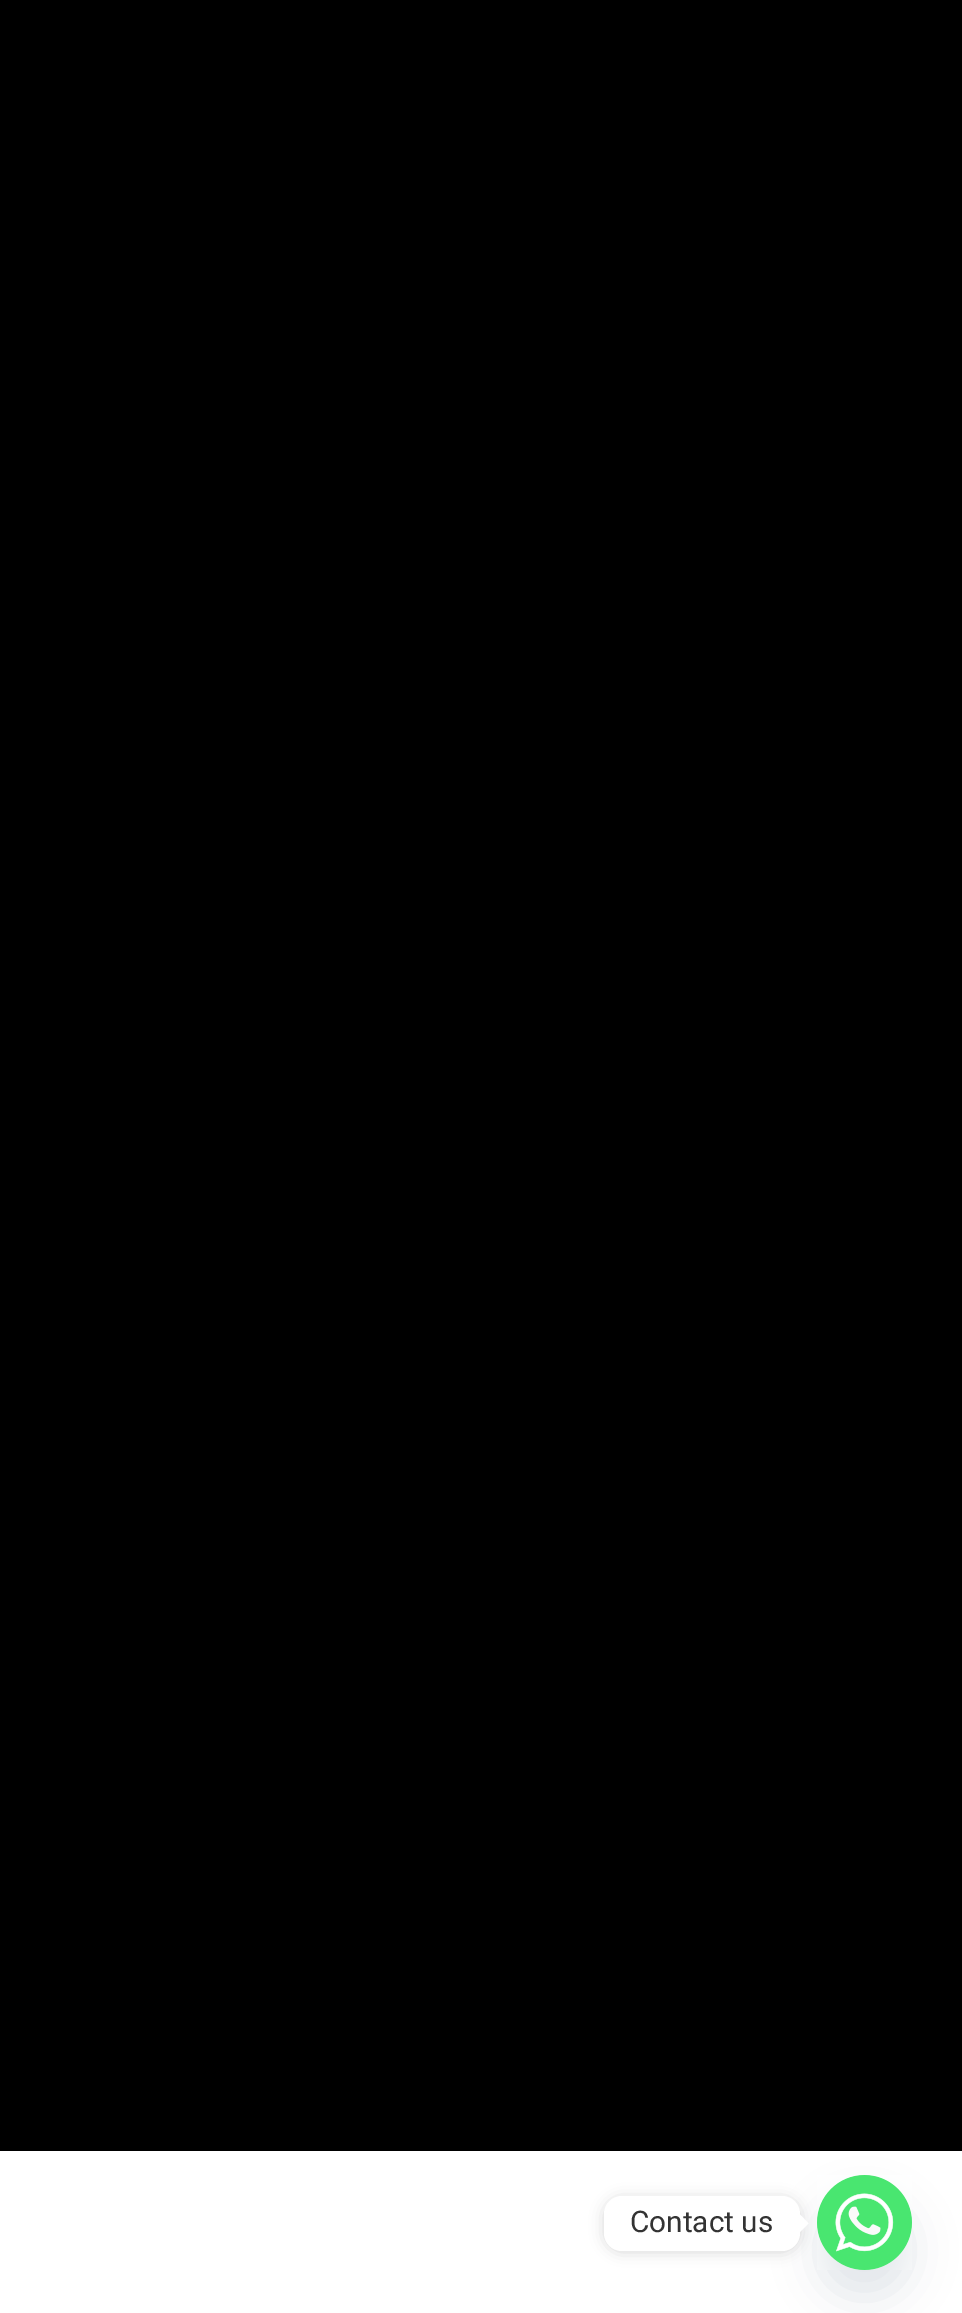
%!PS-Adobe-3.0
%%BoundingBox: 0 0 962 2313
%%LanguageLevel: 3
%%Pages: 1
%%EndComments
%%BeginProlog
/m { moveto } bind def
/l { lineto } bind def
/h { closepath } bind def
/f { fill } bind def
/fn { [ exch dup neg 0 0 3 -1 roll 0 0 ] selectfont } def
/tx { moveto show } def
/bx { rectfill } def
/al { dup .setfillconstantalpha .setstrokeconstantalpha } def
/ci { newpath 0 360 arc closepath } def
/rr { 5 dict begin { /r /h /w /y /x } { exch def } forall
  x r add y moveto x w add y 2 copy h add r arct x w add y h add x 1 index r arct
  x y h add x y r arct x y 2 copy exch w add exch r arct closepath end } def
/sh { 12 dict begin { /a /b /q /h /w /y /x } { exch def } forall gsave /was 0 def
  9 -2 -9 { dup b mul 4 div /e exch def 1 sub .425 mul 2.718 exch exp 1 add a .99 .min exch div /now exch def
    1 1 now sub 1 was sub div sub al /was now def
    w h .min e 2 mul add 0 gt { x e sub y e sub w e 2 mul add h e 2 mul add
      q e add b .6 mul add w h .min 2 div e add .min 0 .max rr fill } if } for grestore end } def
/im { 5 dict begin { /h /w /y /x /name } { exch def } forall
  gsave x y translate w h scale
  w h 8 [w 0 0 h 0 0] name (r) file false 3 colorimage grestore end } def
%%EndProlog
%%BeginSetup
<< /PageSize [962 2313] /PageUsesTransparency true >> setpagedevice
%%EndSetup
%%Page: 1 1
0 .pushpdf14devicefilter
0 2313 translate 1 -1 scale
4 setmiterlimit
1 setgray
0 0 962 2313 bx
0 setgray
0 0 962 2151 bx
0.286 0.408 0.494 setrgbcolor
817 2203 95 95 47.5 21 0.16 sh
0.286 0.902 0.439 setrgbcolor
864.5 2222.5 47.5 ci f
(image0.raw) 817 2175 95 95 im
0 setgray
604 2198 196 54 18 7 0.15 sh
1 setgray
604 2196 196 55 18 rr f
/Roboto-Regular 29.75 fn
0.2 setgray
(Contact us) 630 2232 tx
1 setgray
800 2232 m 800 2214.5 l 808.5 2223.5 l h f
.poppdf14devicefilter showpage
%%EOF
